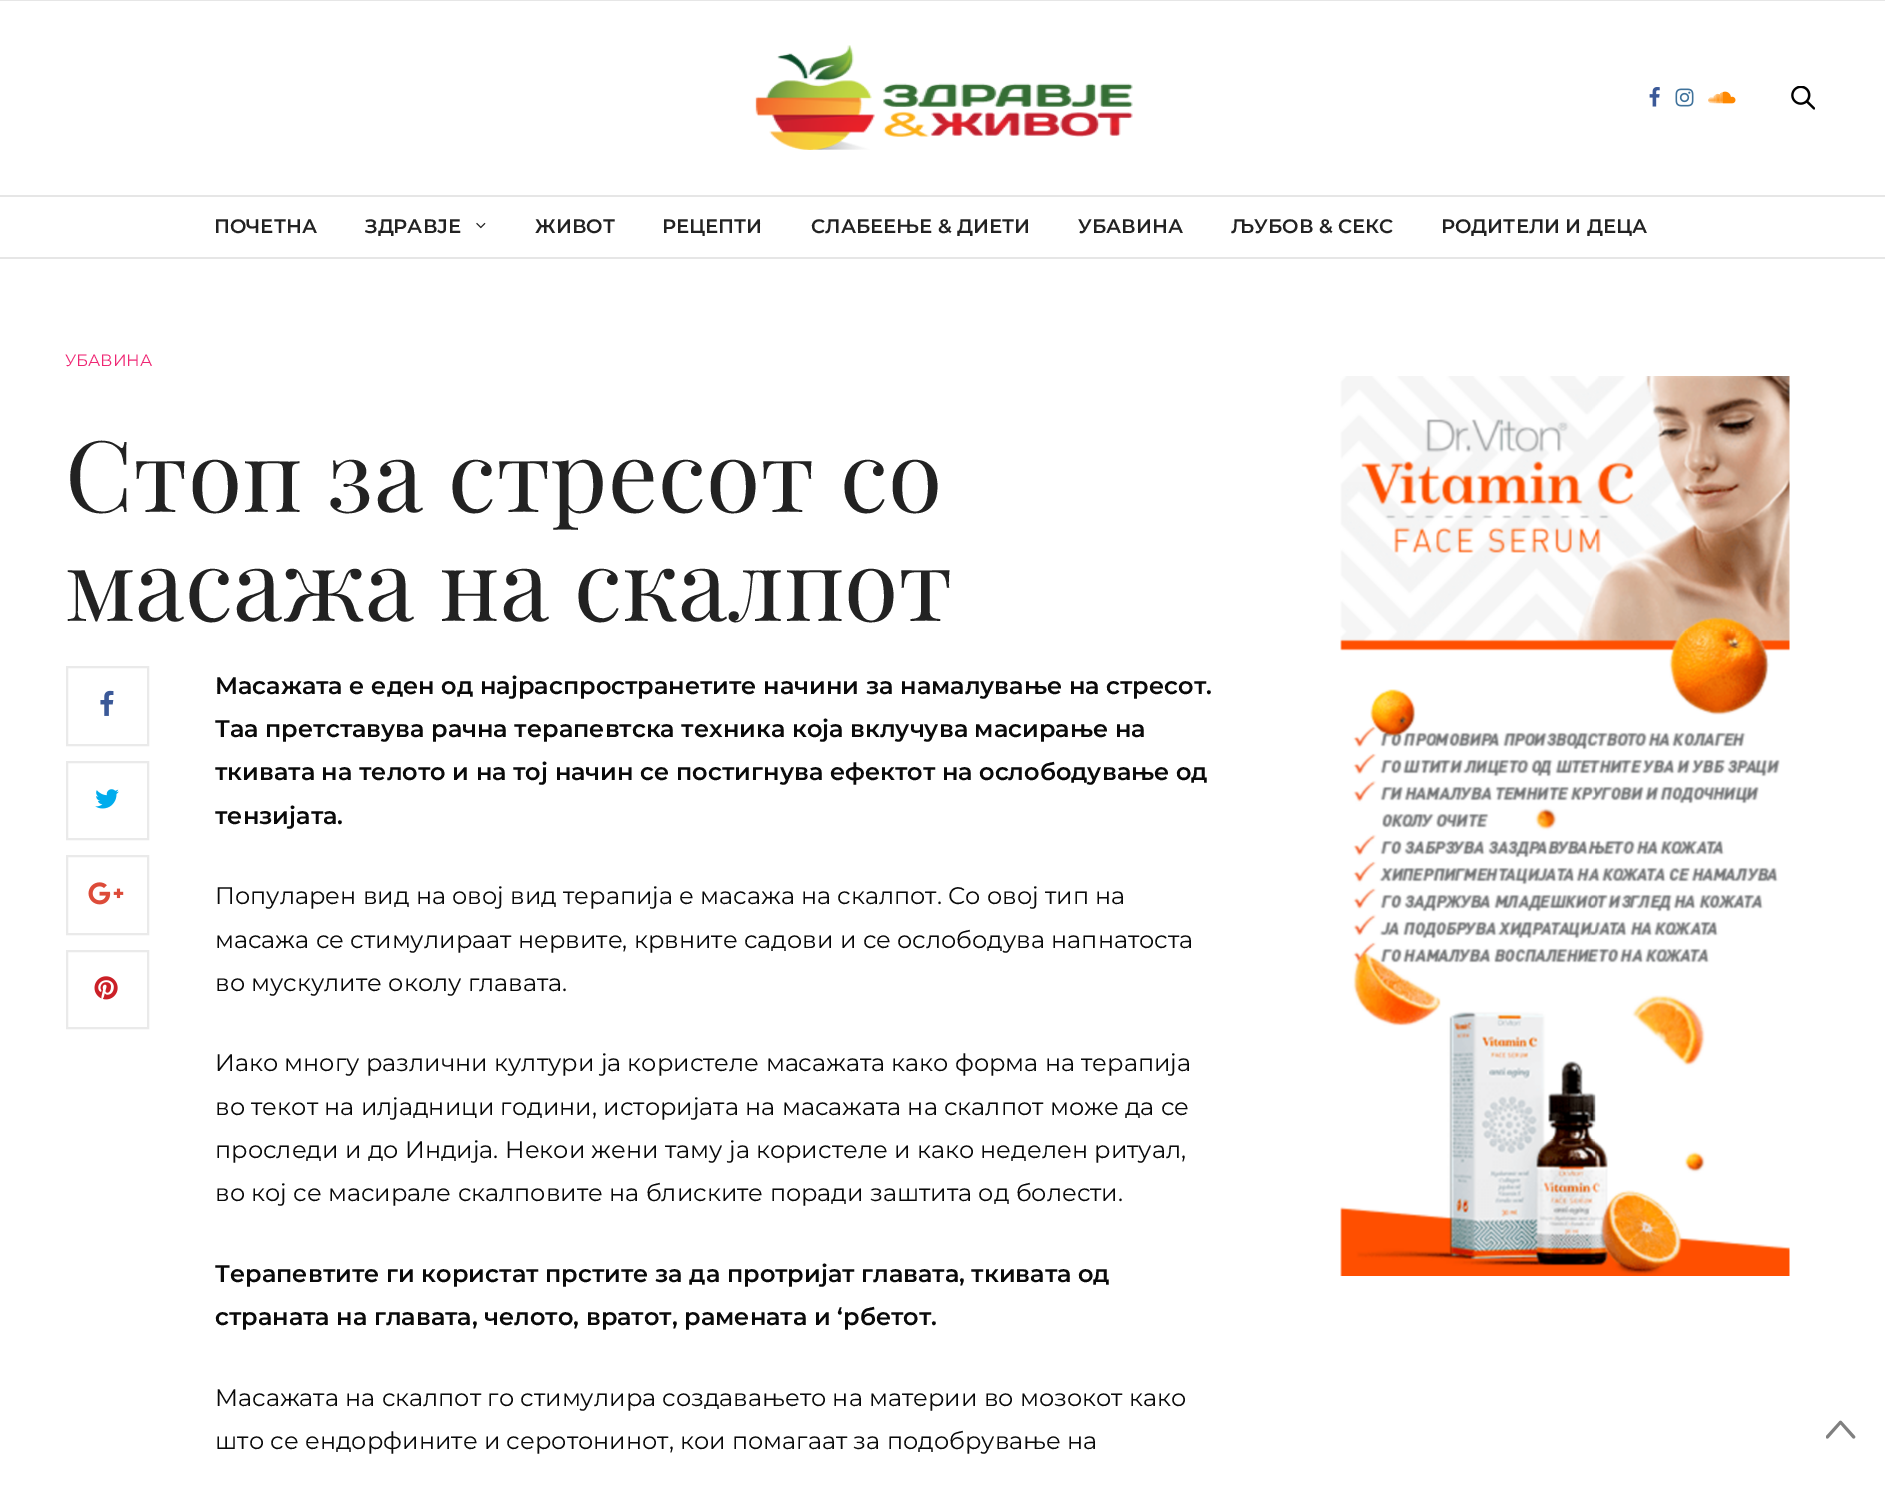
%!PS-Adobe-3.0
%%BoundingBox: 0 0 1885 1485
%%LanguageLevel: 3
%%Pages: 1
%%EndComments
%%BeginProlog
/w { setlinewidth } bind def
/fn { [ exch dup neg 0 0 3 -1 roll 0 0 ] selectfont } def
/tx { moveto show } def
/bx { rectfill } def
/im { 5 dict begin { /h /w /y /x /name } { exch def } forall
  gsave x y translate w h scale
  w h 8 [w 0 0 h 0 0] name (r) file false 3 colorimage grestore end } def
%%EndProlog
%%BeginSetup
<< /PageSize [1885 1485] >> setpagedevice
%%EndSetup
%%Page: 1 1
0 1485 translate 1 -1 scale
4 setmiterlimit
1 setgray
0 0 1885 1485 bx
0.902 setgray
0 0 1885 1 bx
0 195 1885 2 bx
(image0.raw) 755 45 378 105 im
(image1.raw) 1649 87 11 20 im
(image2.raw) 1675 88 19 19 im
(image3.raw) 1708 91 28 13 im
(image4.raw) 1791 86 24 24 im
0 257 1885 2 bx
/Montserrat-SemiBold 19.5 fn
0.133 setgray
(ПОЧЕТНА) 214 233 tx
(ЗДРАВЈЕ) 365 233 tx
(image5.raw) 476 222 10 7 im
(ЖИВОТ) 535 233 tx
(РЕЦЕПТИ) 662 233 tx
(СЛАБЕЕЊЕ & ДИЕТИ) 811 233 tx
(УБАВИНА) 1078 233 tx
(ЉУБОВ & СЕКС) 1231 233 tx
(РОДИТЕЛИ И ДЕЦА) 1441 233 tx
/Montserrat-Regular 16.5 fn
0.937 0.149 0.451 setrgbcolor
(УБАВИНА) 65 366 tx
/PlayfairDisplay-Regular 99 fn
0.133 setgray
(Стоп за стресот со) 65 512 tx
(масажа на скалпот) 65 621 tx
0.918 setgray
2 w
67 667 81 78 rectstroke
(image6.raw) 100 690 14 26 im
67 762 81 77 rectstroke
(image7.raw) 95 789 24 20 im
67 856 81 78 rectstroke
(image8.raw) 88 882 36 23 im
67 951 81 77 rectstroke
(image9.raw) 94 976 24 24 im
/Montserrat-SemiBold 24 fn
0.039 setgray
(Масажата е еден од најраспространетите начини за намалување на стресот.) 215 694 tx
(Таа претставува рачна терапевтска техника која вклучува масирање на) 215 737 tx
(ткивата на телото и на тој начин се постигнува ефектот на ослободување од) 215 780 tx
(тензијата.) 215 824 tx
/Montserrat-Regular 24 fn
(Популарен вид на овој вид терапија е масажа на скалпот. Со овој тип на) 215 904 tx
(масажа се стимулираат нервите, крвните садови и се ослободува напнатоста) 215 948 tx
(во мускулите околу главата.) 215 991 tx
(Иако многу различни култури ја користеле масажата како форма на терапија) 215 1071 tx
(во текот на илјадници години, историјата на масажата на скалпот може да се) 215 1115 tx
(проследи и до Индија. Некои жени таму ја користеле и како неделен ритуал,) 215 1158 tx
(во кој се масирале скалповите на блиските поради заштита од болести.) 215 1201 tx
/Montserrat-SemiBold 24 fn
(Терапевтите ги користат прстите за да протријат главата, ткивата од) 215 1282 tx
(страната на главата, челото, вратот, рамената и ‘рбетот.) 215 1325 tx
/Montserrat-Regular 24 fn
(Масажата на скалпот го стимулира создавањето на материи во мозокот како) 215 1406 tx
(што се ендорфините и серотонинот, кои помагаат за подобрување на) 215 1449 tx
(image10.raw) 1340 376 450 900 im
(image11.raw) 1826 1420 30 19 im
showpage
%%EOF
